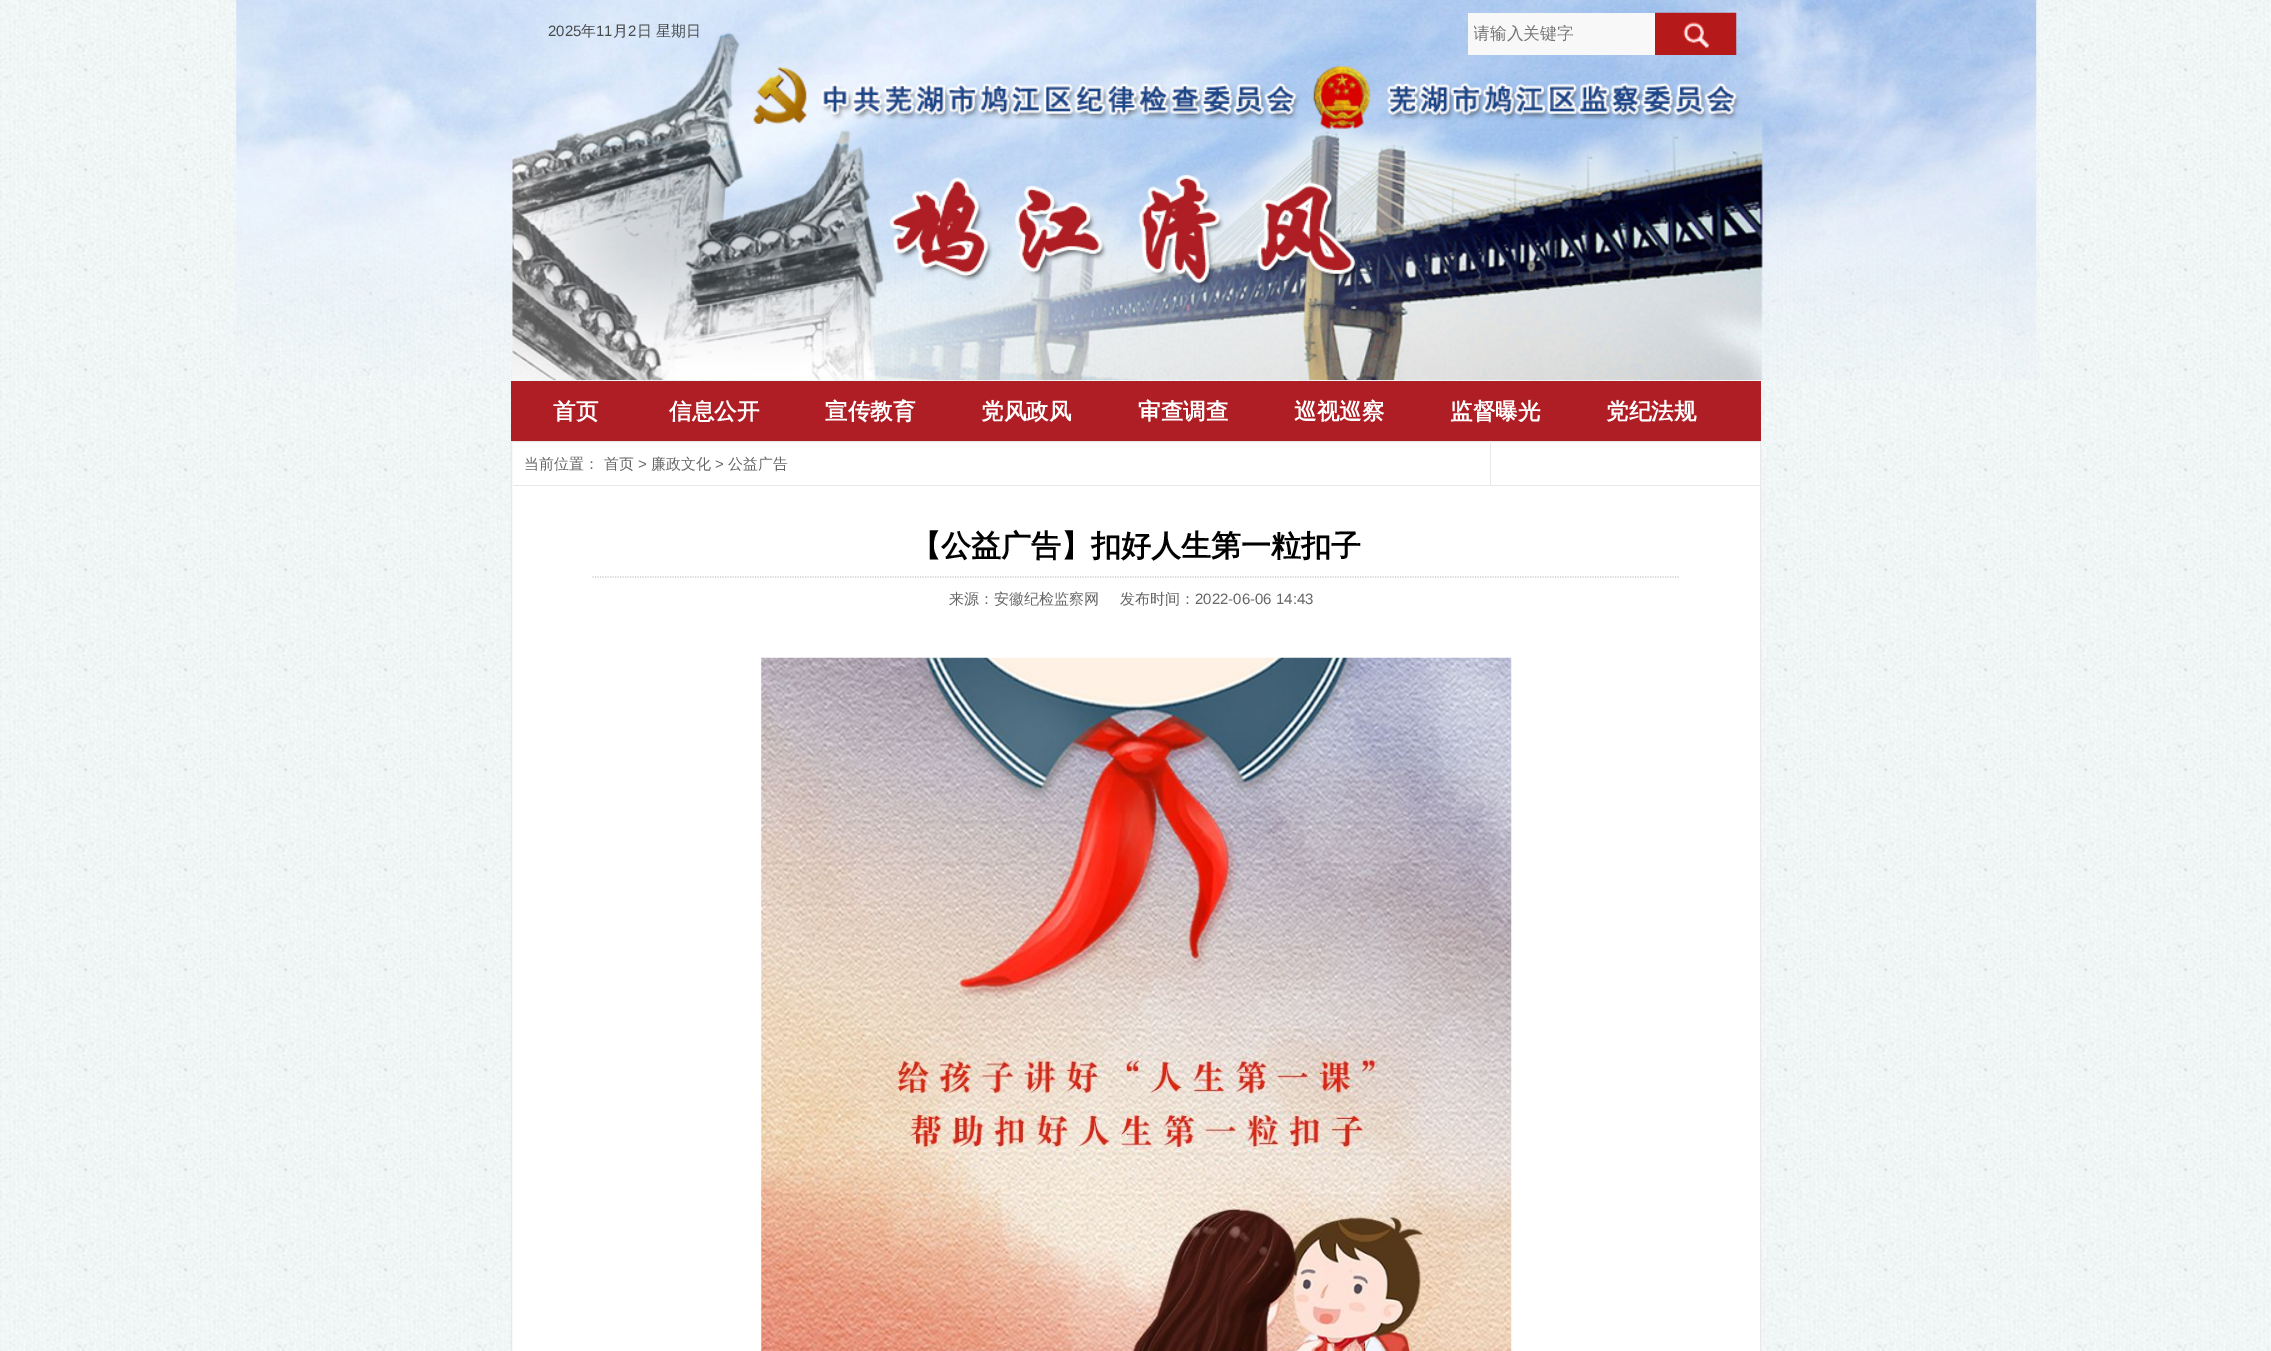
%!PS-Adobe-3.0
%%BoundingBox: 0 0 2271 1351
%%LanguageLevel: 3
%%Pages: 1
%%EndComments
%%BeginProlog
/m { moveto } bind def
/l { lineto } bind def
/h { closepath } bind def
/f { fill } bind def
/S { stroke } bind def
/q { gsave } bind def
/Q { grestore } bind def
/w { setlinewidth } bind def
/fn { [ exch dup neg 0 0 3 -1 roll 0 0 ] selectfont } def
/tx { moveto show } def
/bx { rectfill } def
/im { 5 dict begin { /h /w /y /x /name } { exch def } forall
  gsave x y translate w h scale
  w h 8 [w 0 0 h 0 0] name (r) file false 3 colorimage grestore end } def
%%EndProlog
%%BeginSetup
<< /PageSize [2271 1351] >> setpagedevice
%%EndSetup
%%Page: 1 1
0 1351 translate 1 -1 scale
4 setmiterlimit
1 setgray
0 0 2271 1351 bx
(image0.raw) 0 0 2271 1351 im
(image1.raw) 236 0 1801 380 im
(image2.raw) 892 86 870 221 im
/LiberationSans-Regular 15 fn
0.282 0.29 0.286 setrgbcolor
(2025) 548 36 tx
/WenQuanYiZenHei-Medium 15 fn
(年) 581 36 tx
/LiberationSans-Regular 15 fn
(11) 596 36 tx
/WenQuanYiZenHei-Medium 15 fn
(月) 613 36 tx
/LiberationSans-Regular 15 fn
(2) 628 36 tx
/WenQuanYiZenHei-Medium 15 fn
(日) 637 36 tx
(星期日) 656 36 tx
0.973 setgray
1468 13 187 42 bx
q
1474 23 175 22 rectclip
/WenQuanYiZenHei-Medium 16.75 fn
0.459 setgray
(请输入关键字) 1473 39 tx
Q
(image3.raw) 1655 12 82 43 im
0.686 0.118 0.145 setrgbcolor
511 381 1250 60 bx
/WenQuanYiZenHei-Bold 22.5 fn
1 setgray
(首页) 553 419 tx
(信息公开) 669 419 tx
(宣传教育) 825 419 tx
(党风政风) 981 419 tx
(审查调查) 1138 419 tx
(巡视巡察) 1294 419 tx
(监督曝光) 1450 419 tx
(党纪法规) 1606 419 tx
511.5 441.5 m 1760.5 441.5 l 1760.5 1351.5 l 511.5 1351.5 l h q f Q
0.91 setgray
S
513 485 1247 1 bx
/WenQuanYiZenHei-Medium 15 fn
0.4 setgray
(当前位置：) 524 469 tx
(首页) 604 469 tx
/LiberationSans-Regular 15 fn
(>) 638 469 tx
/WenQuanYiZenHei-Medium 15 fn
(廉政文化) 651 469 tx
/LiberationSans-Regular 15 fn
(>) 715 469 tx
/WenQuanYiZenHei-Medium 15 fn
(公益广告) 728 469 tx
0.91 setgray
1490 443 1 42 bx
/WenQuanYiZenHei-Bold 30 fn
0 setgray
(【公益广告】扣好人生第一粒扣子) 911 556 tx
0.812 setgray
1.2 w
[1.25 1.25] 0 setdash
592.5 577 m 1680 577 l S
/WenQuanYiZenHei-Medium 15 fn
0.4 setgray
(来源：安徽纪检监察网) 949 604 tx
(发布时间：) 1120 604 tx
/LiberationSans-Regular 15 fn
(2022-06-06 14:43) 1195 604 tx
(image4.raw) 761 657 751 694 im
showpage
%%EOF
